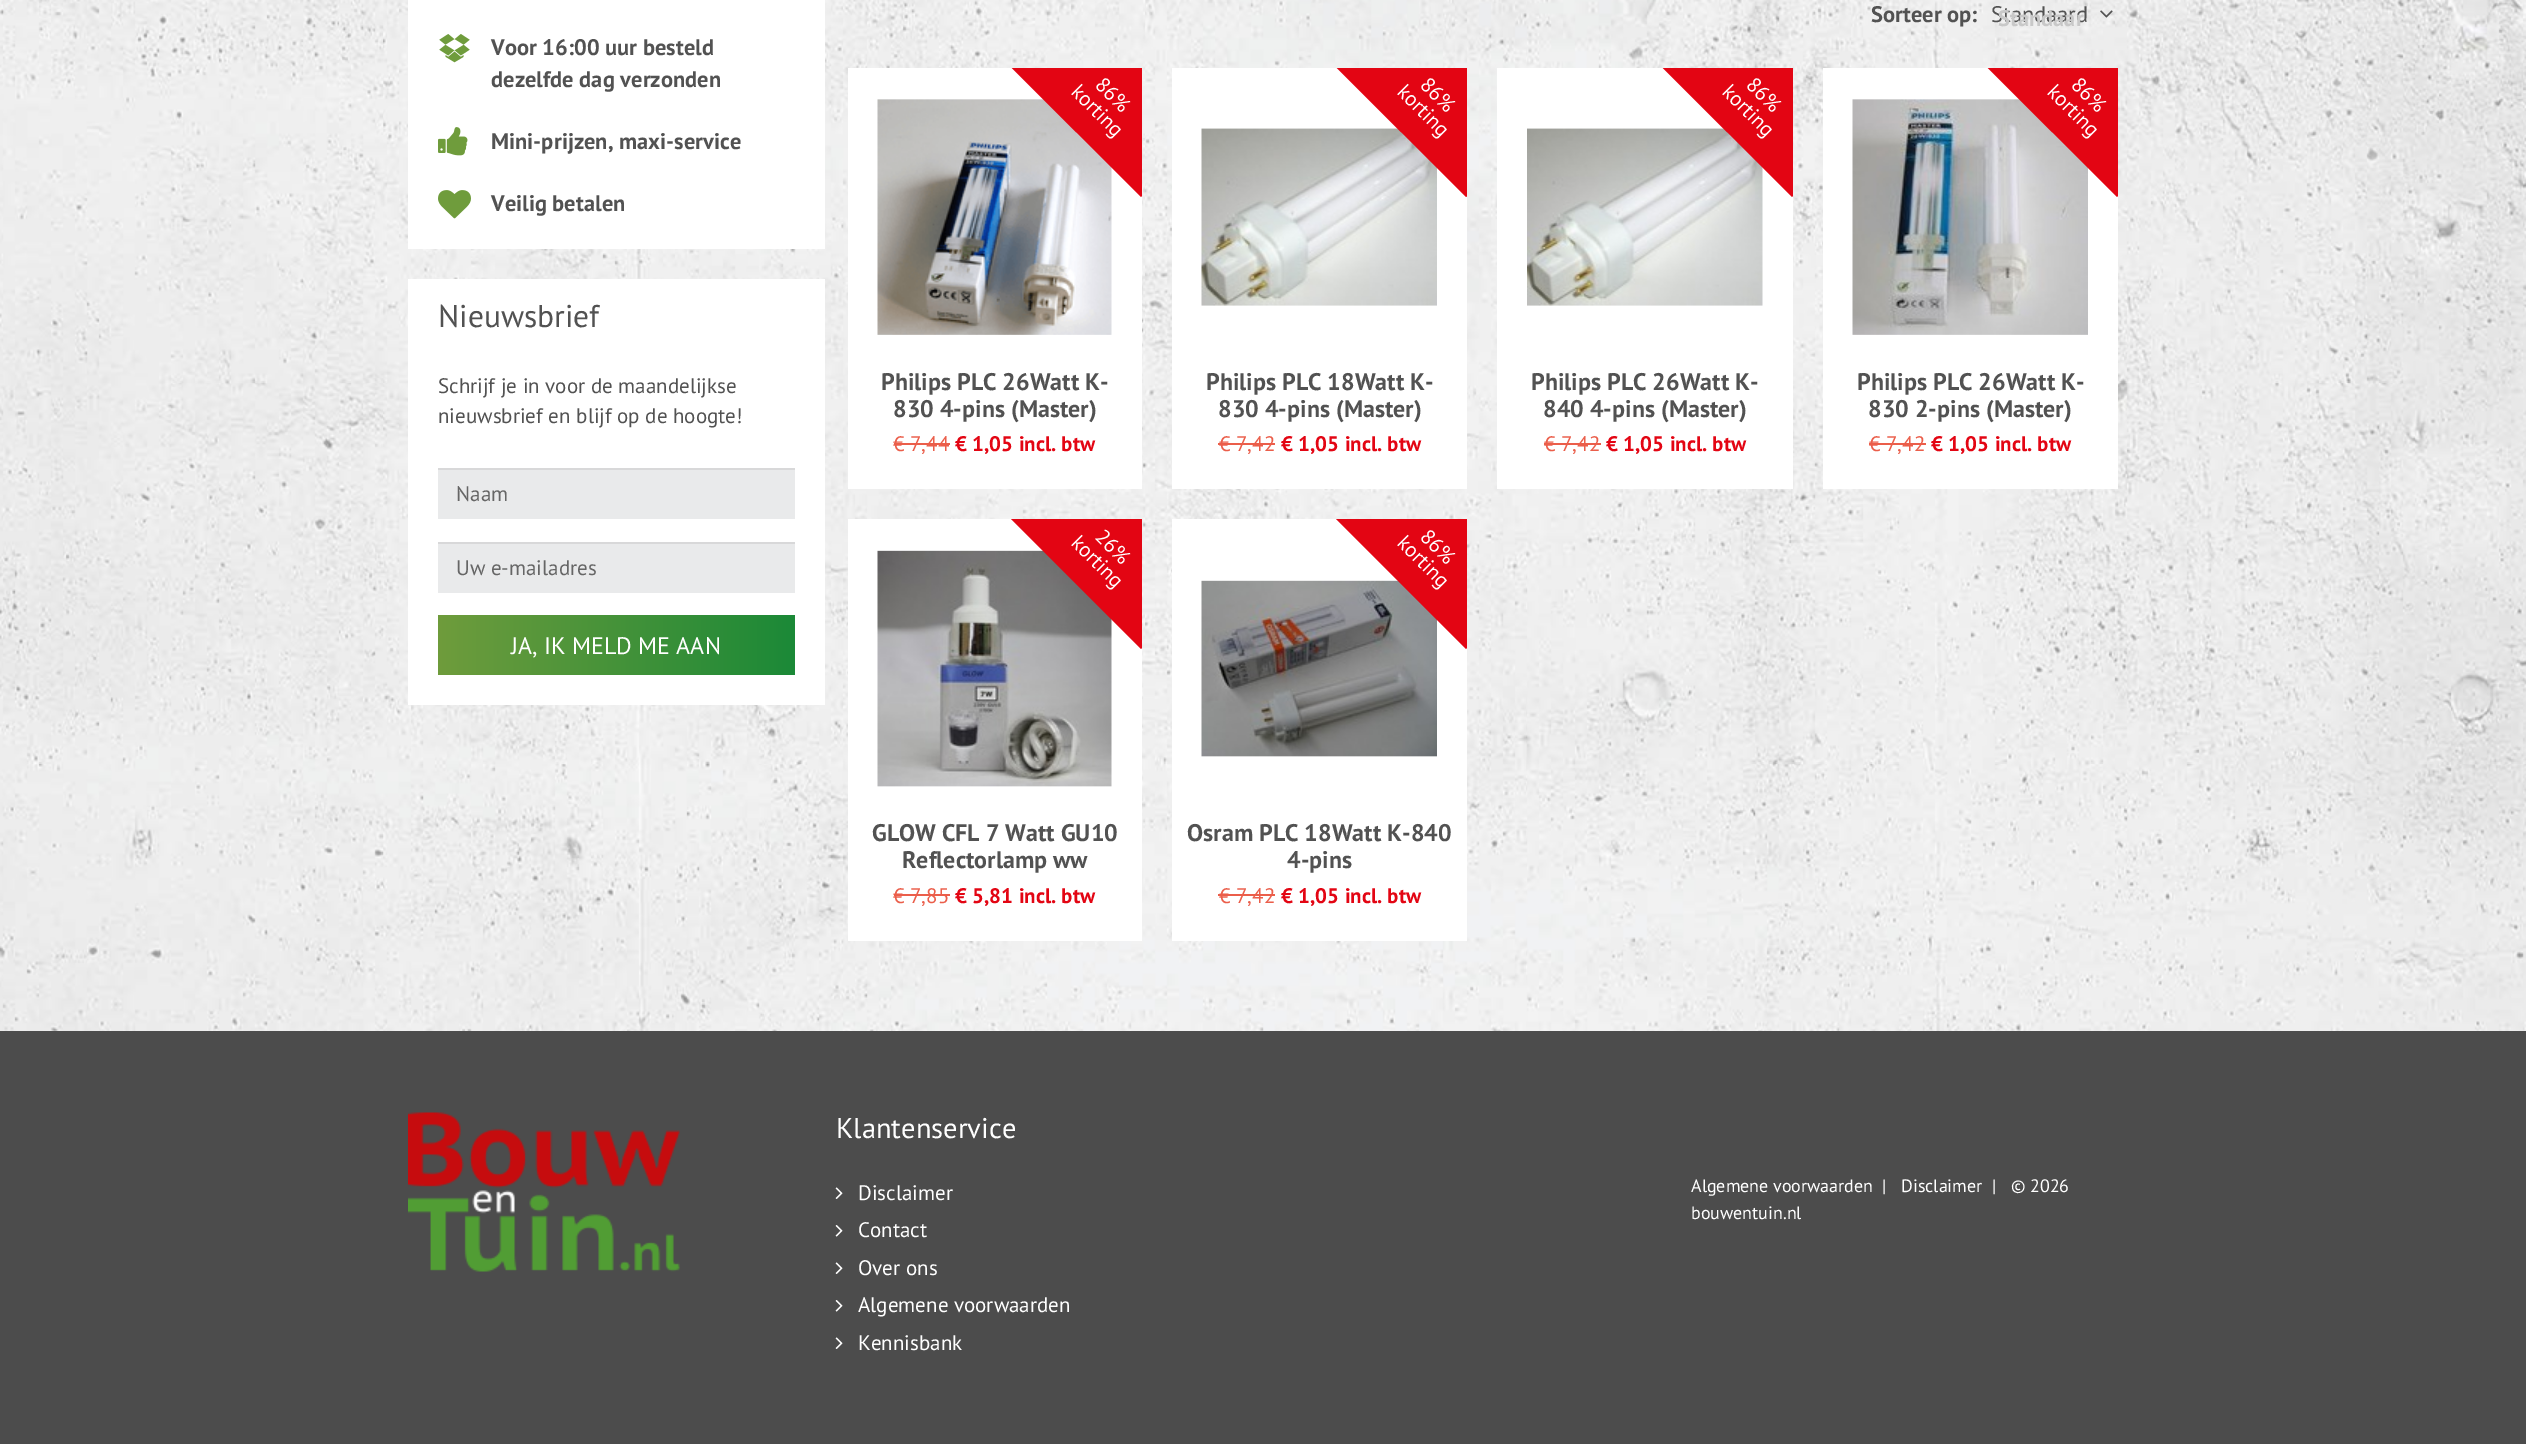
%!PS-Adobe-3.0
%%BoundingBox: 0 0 2526 1444
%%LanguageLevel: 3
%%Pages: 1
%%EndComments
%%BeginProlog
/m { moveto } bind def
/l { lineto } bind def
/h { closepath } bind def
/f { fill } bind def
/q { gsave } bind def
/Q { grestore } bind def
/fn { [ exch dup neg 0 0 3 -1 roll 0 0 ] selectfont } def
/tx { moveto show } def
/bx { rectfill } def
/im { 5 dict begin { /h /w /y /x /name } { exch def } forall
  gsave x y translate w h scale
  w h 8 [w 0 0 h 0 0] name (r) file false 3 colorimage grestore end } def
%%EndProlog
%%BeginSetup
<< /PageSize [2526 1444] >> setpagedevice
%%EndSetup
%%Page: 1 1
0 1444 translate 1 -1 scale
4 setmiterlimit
1 setgray
0 0 2526 1444 bx
(image0.raw) 0 0 2526 1031 im
408 0 417 249 bx
(image1.raw) 439 34 31 29 im
/PTSans-Bold 22.5 fn
0.322 setgray
(Voor 16:00 uur besteld) 491 55 tx
(dezelfde dag verzonden) 491 87 tx
(image2.raw) 438 127 30 29 im
(Mini-prijzen, maxi-service) 491 149 tx
(image3.raw) 438 190 33 29 im
(Veilig betalen) 491 211 tx
1 setgray
408 279 417 426 bx
/PTSans-Regular 31.5 fn
0.322 setgray
(Nieuwsbrief) 438 327 tx
/PTSans-Regular 21 fn
(Schrijf je in voor de maandelijkse) 438 393 tx
(nieuwsbrief en blijf op de hoogte!) 438 423 tx
0.914 0.918 0.922 setrgbcolor
438 470 357 49 bx
0.847 0.847 0.851 setrgbcolor
438 468 357 2 bx
0.4 setgray
(Naam) 456 501 tx
0.914 0.918 0.922 setrgbcolor
438 544 357 49 bx
0.847 0.847 0.851 setrgbcolor
438 542 357 2 bx
0.4 setgray
(Uw e-mailadres) 456 575 tx
q 438 615 m 795 615 l 795 675 l 438 675 l h clip newpath
<< /ShadingType 2 /ColorSpace /DeviceRGB /Coords [438 645 795 645] /Extend [true true] /Function << /FunctionType 2 /Domain [0 1] /C0 [0.435 0.612 0.235] /C1 [0.106 0.537 0.216] /N 1 >> >> shfill Q
/PTSans-Regular 24 fn
1 setgray
(JA, IK MELD ME AAN) 511 654 tx
/PTSans-Bold 22.5 fn
0.322 setgray
(Sorteer op:) 1871 22 tx
/PTSans-Regular 22.5 fn
(Standaard) 1991 22 tx
/PTSans-Bold 22.5 fn
0.784 setgray
(Standaar) 1998 26 tx
(image4.raw) 2100 10 13 8 im
1 setgray
848 68 294 421 bx
(image5.raw) 877 99 235 236 im
q
848 68 294 421 rectclip
0.89 0.02 0.075 setrgbcolor
1103 -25 m 1233 105 l 1141 197 l 1011 67 l h f
Q
/PTSans-Regular 21 fn
q 1094 86 translate 45 rotate 0 0 m (86%) show Q
q 1070 93 translate 45 rotate 0 0 m (korting) show Q
/PTSans-Bold 24 fn
0.322 setgray
(Philips PLC 26Watt K-) 881 390 tx
(830 4-pins \(Master\)) 893 417 tx
/PTSans-Regular 21 fn
0.922 0.369 0.29 setrgbcolor
(€ 7,44) 893 451 tx
894 443 56 2 bx
/PTSans-Bold 21 fn
0.89 0.02 0.075 setrgbcolor
(€ 1,05 incl. btw) 955 451 tx
1 setgray
1172 68 295 421 bx
(image6.raw) 1201 128 236 178 im
q
1172 68 295 421 rectclip
0.89 0.02 0.075 setrgbcolor
1428 -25 m 1559 105 l 1466 197 l 1336 67 l h f
Q
/PTSans-Regular 21 fn
q 1419 86 translate 45 rotate 0 0 m (86%) show Q
q 1396 93 translate 45 rotate 0 0 m (korting) show Q
/PTSans-Bold 24 fn
0.322 setgray
(Philips PLC 18Watt K-) 1206 390 tx
(830 4-pins \(Master\)) 1218 417 tx
/PTSans-Regular 21 fn
0.922 0.369 0.29 setrgbcolor
(€ 7,42) 1219 451 tx
1218 443 57 2 bx
/PTSans-Bold 21 fn
0.89 0.02 0.075 setrgbcolor
(€ 1,05 incl. btw) 1281 451 tx
1 setgray
1497 68 296 421 bx
(image7.raw) 1527 128 236 178 im
q
1497 68 296 421 rectclip
0.89 0.02 0.075 setrgbcolor
1754 -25 m 1884 105 l 1792 197 l 1662 67 l h f
Q
/PTSans-Regular 21 fn
q 1745 86 translate 45 rotate 0 0 m (86%) show Q
q 1721 93 translate 45 rotate 0 0 m (korting) show Q
/PTSans-Bold 24 fn
0.322 setgray
(Philips PLC 26Watt K-) 1531 390 tx
(840 4-pins \(Master\)) 1543 417 tx
/PTSans-Regular 21 fn
0.922 0.369 0.29 setrgbcolor
(€ 7,42) 1544 451 tx
1544 443 57 2 bx
/PTSans-Bold 21 fn
0.89 0.02 0.075 setrgbcolor
(€ 1,05 incl. btw) 1606 451 tx
1 setgray
1823 68 295 421 bx
(image8.raw) 1852 99 236 236 im
q
1823 68 295 421 rectclip
0.89 0.02 0.075 setrgbcolor
2079 -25 m 2209 105 l 2117 197 l 1987 67 l h f
Q
/PTSans-Regular 21 fn
q 2070 86 translate 45 rotate 0 0 m (86%) show Q
q 2046 93 translate 45 rotate 0 0 m (korting) show Q
/PTSans-Bold 24 fn
0.322 setgray
(Philips PLC 26Watt K-) 1857 390 tx
(830 2-pins \(Master\)) 1868 417 tx
/PTSans-Regular 21 fn
0.922 0.369 0.29 setrgbcolor
(€ 7,42) 1869 451 tx
1869 443 57 2 bx
/PTSans-Bold 21 fn
0.89 0.02 0.075 setrgbcolor
(€ 1,05 incl. btw) 1931 451 tx
1 setgray
848 519 294 422 bx
(image9.raw) 877 550 235 237 im
q
848 519 294 422 rectclip
0.89 0.02 0.075 setrgbcolor
1103 426 m 1233 556 l 1141 649 l 1011 519 l h f
Q
/PTSans-Regular 21 fn
q 1094 538 translate 45 rotate 0 0 m (26%) show Q
q 1070 544 translate 45 rotate 0 0 m (korting) show Q
/PTSans-Bold 24 fn
0.322 setgray
(GLOW CFL 7 Watt GU10) 872 841 tx
(Reflectorlamp ww) 902 868 tx
/PTSans-Regular 21 fn
0.922 0.369 0.29 setrgbcolor
(€ 7,85) 893 903 tx
894 894 56 2 bx
/PTSans-Bold 21 fn
0.89 0.02 0.075 setrgbcolor
(€ 5,81 incl. btw) 955 903 tx
1 setgray
1172 519 295 422 bx
(image10.raw) 1201 580 236 177 im
q
1172 519 295 422 rectclip
0.89 0.02 0.075 setrgbcolor
1428 426 m 1559 556 l 1466 649 l 1336 519 l h f
Q
/PTSans-Regular 21 fn
q 1419 538 translate 45 rotate 0 0 m (86%) show Q
q 1396 544 translate 45 rotate 0 0 m (korting) show Q
/PTSans-Bold 24 fn
0.322 setgray
(Osram PLC 18Watt K-840) 1187 841 tx
(4-pins) 1287 868 tx
/PTSans-Regular 21 fn
0.922 0.369 0.29 setrgbcolor
(€ 7,42) 1219 903 tx
1218 894 57 2 bx
/PTSans-Bold 21 fn
0.89 0.02 0.075 setrgbcolor
(€ 1,05 incl. btw) 1281 903 tx
0.298 setgray
0 1031 2526 413 bx
(image11.raw) 408 1112 272 160 im
/PTSans-Regular 28.5 fn
1 setgray
(Klantenservice) 836 1138 tx
(image12.raw) 835 1187 8 12 im
/PTSans-Regular 21 fn
(Disclaimer) 858 1200 tx
(image13.raw) 835 1225 8 12 im
(Contact) 858 1237 tx
(image12.raw) 835 1262 8 12 im
(Over ons) 858 1275 tx
(image13.raw) 835 1300 8 12 im
(Algemene voorwaarden) 858 1312 tx
(image12.raw) 835 1337 8 12 im
(Kennisbank) 858 1350 tx
/PTSans-Regular 18 fn
(Algemene voorwaarden) 1691 1192 tx
(|) 1882 1192 tx
(Disclaimer) 1901 1192 tx
(|   © 2026) 1992 1192 tx
(bouwentuin.nl) 1691 1219 tx
showpage
%%EOF
